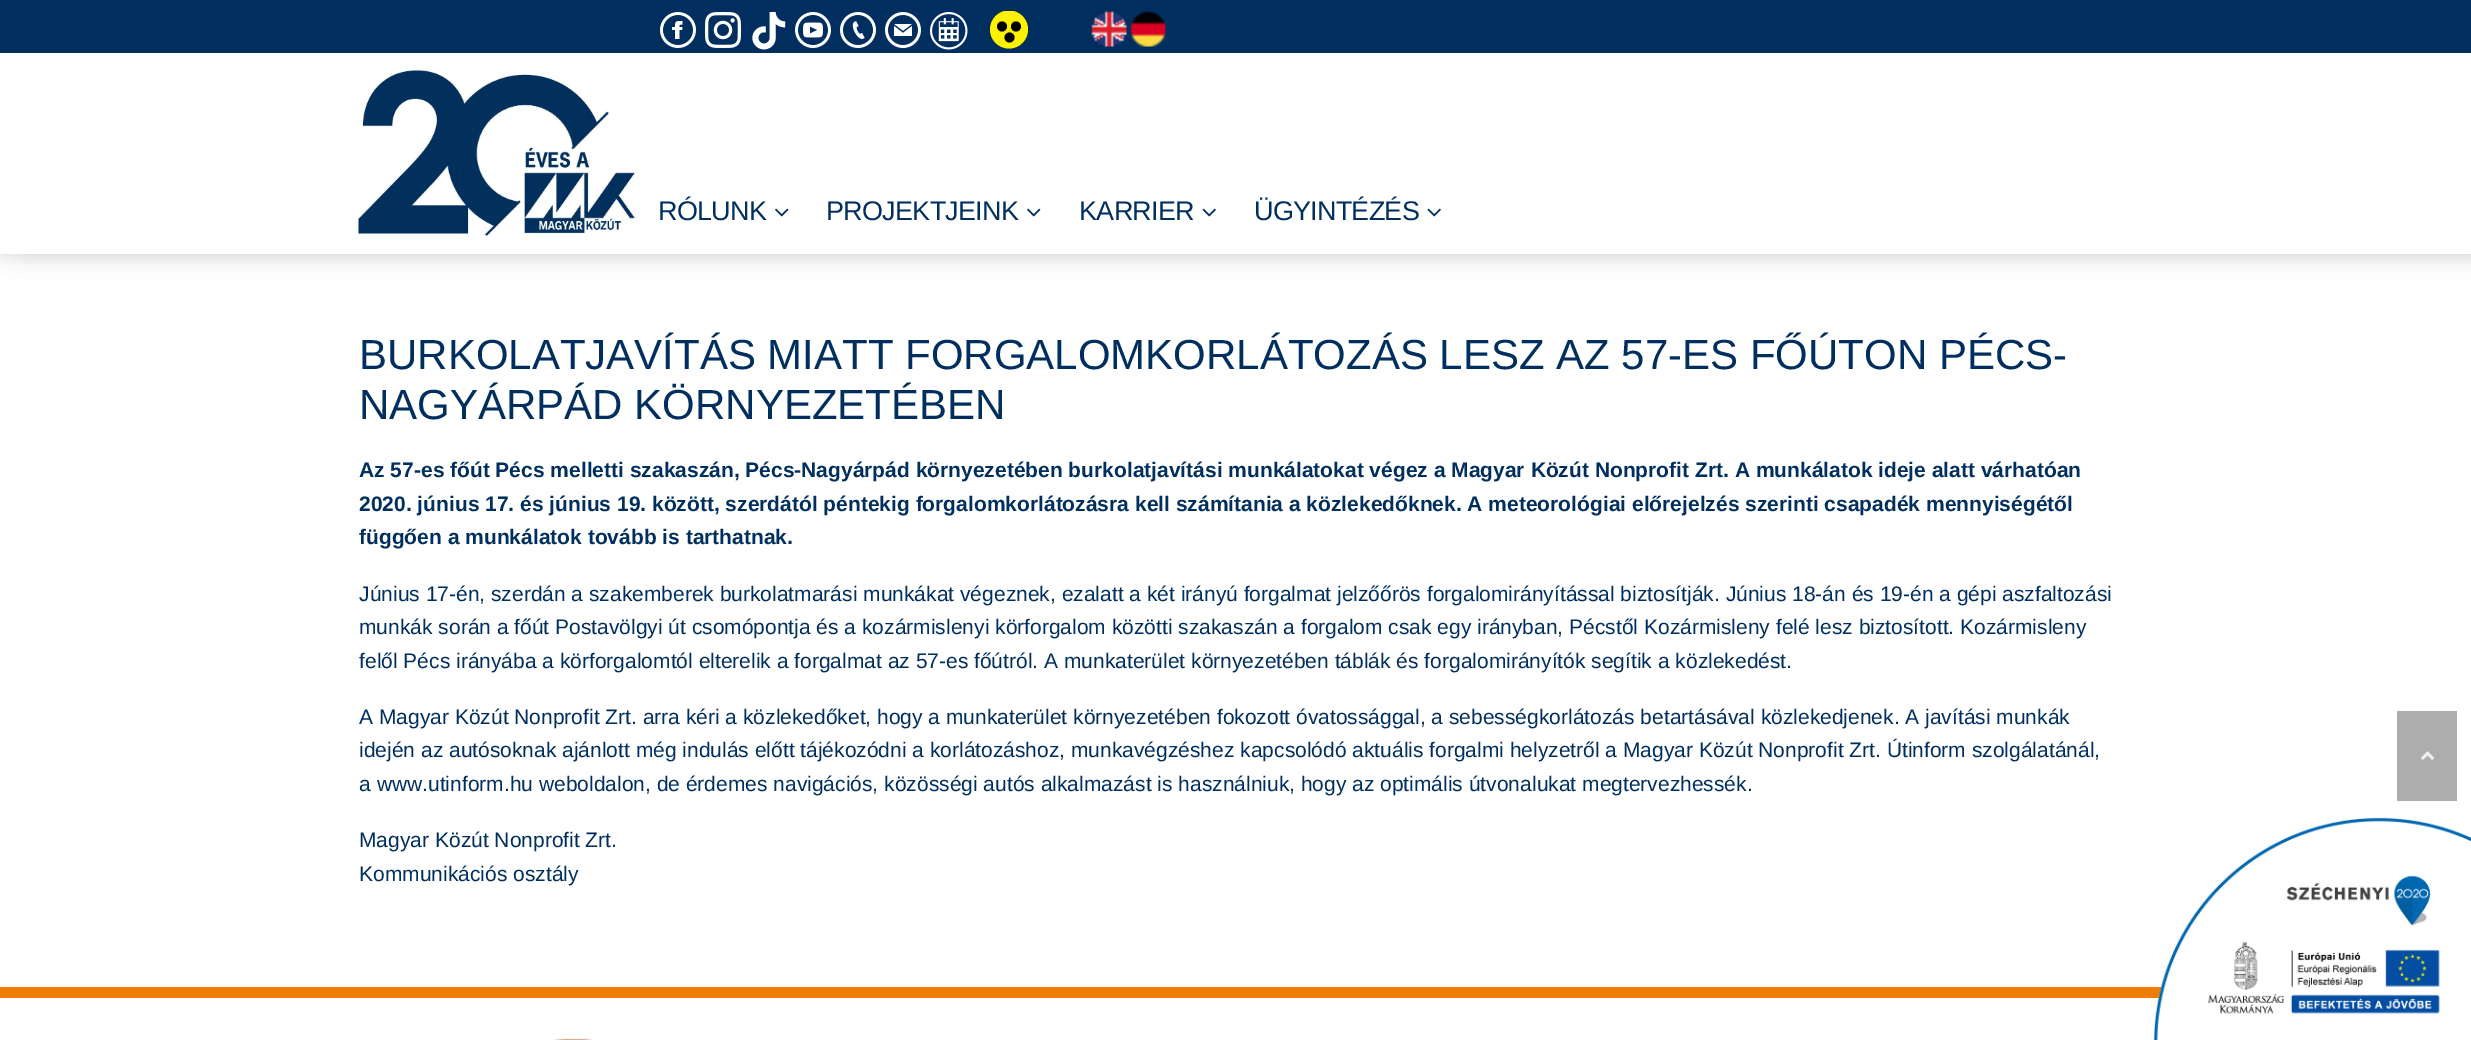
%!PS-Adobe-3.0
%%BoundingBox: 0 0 2471 1040
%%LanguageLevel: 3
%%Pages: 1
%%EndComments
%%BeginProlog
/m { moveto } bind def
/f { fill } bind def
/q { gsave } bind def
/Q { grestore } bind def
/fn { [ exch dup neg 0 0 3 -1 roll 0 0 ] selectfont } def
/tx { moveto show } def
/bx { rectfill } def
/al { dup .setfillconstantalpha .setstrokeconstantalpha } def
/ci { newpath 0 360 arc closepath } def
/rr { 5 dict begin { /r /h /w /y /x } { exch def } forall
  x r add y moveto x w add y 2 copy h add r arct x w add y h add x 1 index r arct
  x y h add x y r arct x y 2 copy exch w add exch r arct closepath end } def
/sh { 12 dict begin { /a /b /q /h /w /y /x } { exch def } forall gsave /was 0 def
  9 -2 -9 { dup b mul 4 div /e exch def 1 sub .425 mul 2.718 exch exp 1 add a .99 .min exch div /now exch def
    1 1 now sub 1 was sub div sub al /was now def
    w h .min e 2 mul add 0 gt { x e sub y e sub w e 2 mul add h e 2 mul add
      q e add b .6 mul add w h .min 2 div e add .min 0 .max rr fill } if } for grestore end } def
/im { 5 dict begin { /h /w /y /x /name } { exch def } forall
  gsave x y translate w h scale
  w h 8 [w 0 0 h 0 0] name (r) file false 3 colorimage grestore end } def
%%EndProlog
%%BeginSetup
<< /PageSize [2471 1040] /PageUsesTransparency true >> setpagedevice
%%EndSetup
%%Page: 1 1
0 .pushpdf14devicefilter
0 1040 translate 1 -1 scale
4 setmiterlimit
1 setgray
0 0 2471 1040 bx
0.902 setgray
23 45 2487 216 0 15 0.6 sh
0 setgray
0 57 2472 201 0 7.5 0.1 sh
0 0.184 0.373 setrgbcolor
0 0 2471 53 bx
(image0.raw) 660 12 36 36 im
(image1.raw) 705 12 36 36 im
(image2.raw) 752 12 34 38 im
(image3.raw) 795 12 36 36 im
(image4.raw) 840 12 36 36 im
(image5.raw) 885 12 36 36 im
(image6.raw) 930 12 38 38 im
q
990 11 38 39 rectclip
1 0.949 0 setrgbcolor
1009 29.5 19 ci f
Q
0 setgray
1002 26.5 5 ci f
1016 26.5 5 ci f
1009.5 37.5 5 ci f
(image7.raw) 1091 11 36 36 im
(image8.raw) 1130 11 36 36 im
0.941 0.49 0.024 setrgbcolor
0 987 2162 11 bx
(image9.raw) 2153 817 318 223 im
1 setgray
0 53 2471 201 bx
(image10.raw) 358 70 277 166 im
/LiberationSans-Regular 27 fn
0 0.184 0.373 setrgbcolor
658 220 m -0.75 0 (RÓLUNK) ashow
(image11.raw) 775 208 14 9 im
826 220 m -0.75 0 (PROJEKTJEINK) ashow
(image11.raw) 1027 208 14 9 im
1079 220 m -0.75 0 (KARRIER) ashow
(image12.raw) 1202 208 14 9 im
1254 220 m -0.75 0 (ÜGYINTÉZÉS) ashow
(image12.raw) 1427 208 14 9 im
/LiberationSans-Regular 42 fn
(BURKOLATJAVÍTÁS MIATT FORGALOMKORLÁTOZÁS LESZ AZ 57-ES FŐÚTON PÉCS-) 359 369 tx
(NAGYÁRPÁD KÖRNYEZETÉBEN) 359 419 tx
/LiberationSans-Bold 21 fn
(Az 57-es főút Pécs melletti szakaszán, Pécs-Nagyárpád környezetében burkolatjavítási munkálatokat végez a Magyar Közút Nonprofit Zrt. A munkálatok ideje alatt várhatóan) 359 477 tx
(2020. június 17. és június 19. között, szerdától péntekig forgalomkorlátozásra kell számítania a közlekedőknek. A meteorológiai előrejelzés szerinti csapadék mennyiségétől) 359 511 tx
(függően a munkálatok tovább is tarthatnak.) 359 544 tx
/LiberationSans-Regular 21 fn
(Június 17-én, szerdán a szakemberek burkolatmarási munkákat végeznek, ezalatt a két irányú forgalmat jelzőőrös forgalomirányítással biztosítják. Június 18-án és 19-én a gépi aszfaltozási) 359 601 tx
(munkák során a főút Postavölgyi út csomópontja és a kozármislenyi körforgalom közötti szakaszán a forgalom csak egy irányban, Pécstől Kozármisleny felé lesz biztosított. Kozármisleny) 359 634 tx
(felől Pécs irányába a körforgalomtól elterelik a forgalmat az 57-es főútról. A munkaterület környezetében táblák és forgalomirányítók segítik a közlekedést.) 359 668 tx
(A Magyar Közút Nonprofit Zrt. arra kéri a közlekedőket, hogy a munkaterület környezetében fokozott óvatossággal, a sebességkorlátozás betartásával közlekedjenek. A javítási munkák) 359 724 tx
(idején az autósoknak ajánlott még indulás előtt tájékozódni a korlátozáshoz, munkavégzéshez kapcsolódó aktuális forgalmi helyzetről a Magyar Közút Nonprofit Zrt. Útinform szolgálatánál,) 359 757 tx
(a www.utinform.hu weboldalon, de érdemes navigációs, közösségi autós alkalmazást is használniuk, hogy az optimális útvonalukat megtervezhessék.) 359 791 tx
(Magyar Közút Nonprofit Zrt.) 359 847 tx
(Kommunikációs osztály) 359 881 tx
(image13.raw) 554 1038 40 2 im
0.678 setgray
2397 711 60 90 bx
(image14.raw) 2421 751 13 9 im
.poppdf14devicefilter showpage
%%EOF
